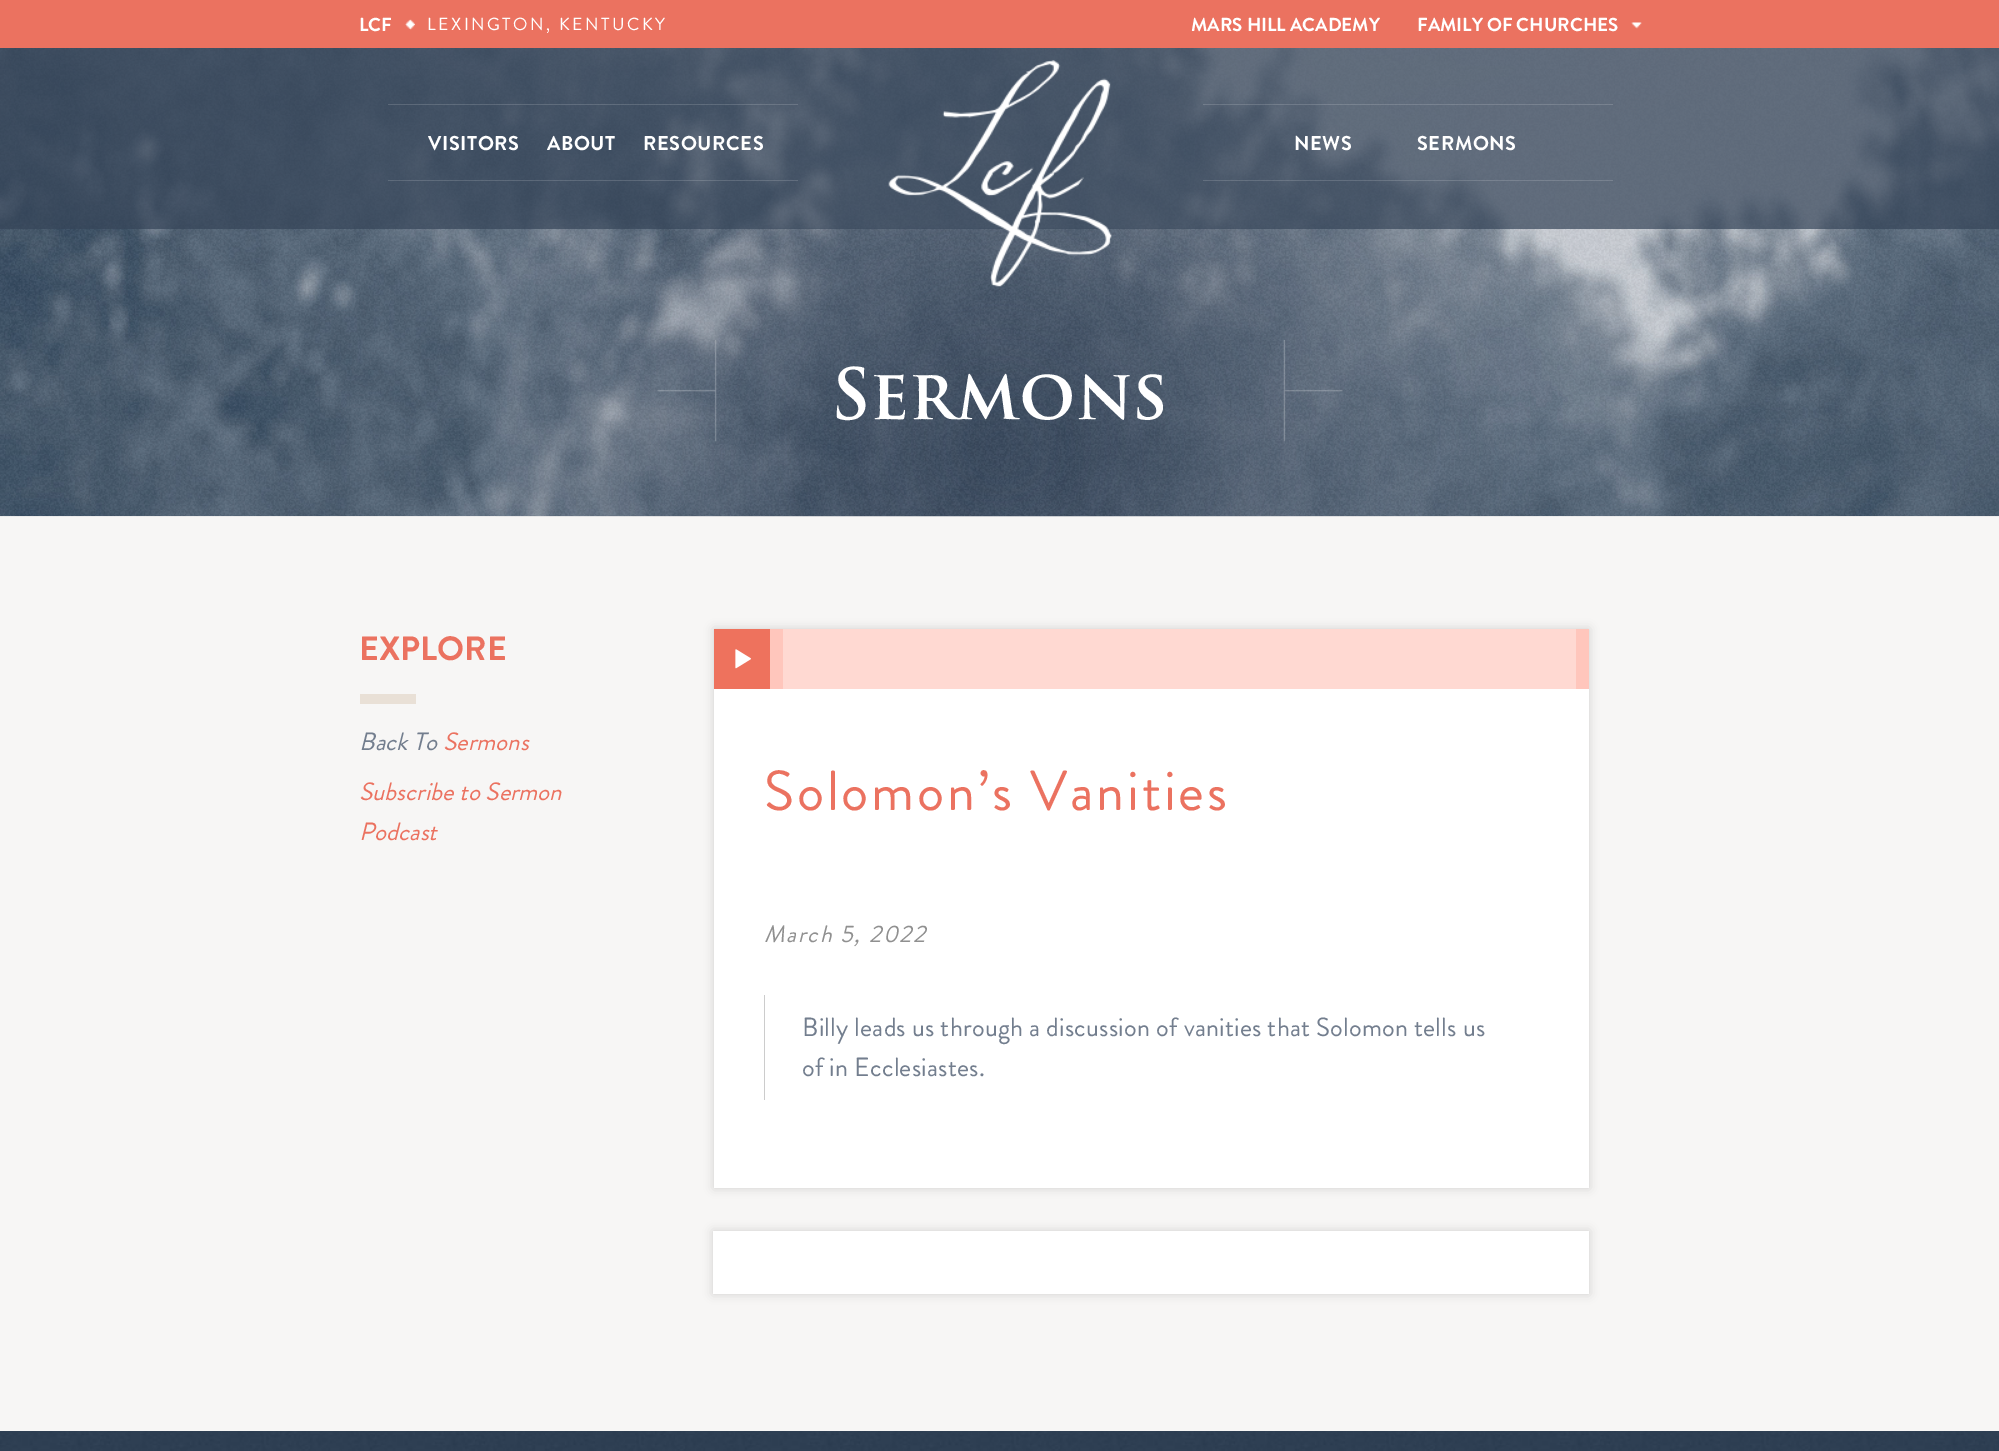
%!PS-Adobe-3.0
%%BoundingBox: 0 0 1999 1451
%%LanguageLevel: 3
%%Pages: 1
%%EndComments
%%BeginProlog
/m { moveto } bind def
/fn { [ exch dup neg 0 0 3 -1 roll 0 0 ] selectfont } def
/tx { moveto show } def
/bx { rectfill } def
/al { dup .setfillconstantalpha .setstrokeconstantalpha } def
/rr { 5 dict begin { /r /h /w /y /x } { exch def } forall
  x r add y moveto x w add y 2 copy h add r arct x w add y h add x 1 index r arct
  x y h add x y r arct x y 2 copy exch w add exch r arct closepath end } def
/sh { 12 dict begin { /a /b /q /h /w /y /x } { exch def } forall gsave /was 0 def
  9 -2 -9 { dup b mul 4 div /e exch def 1 sub .425 mul 2.718 exch exp 1 add a .99 .min exch div /now exch def
    1 1 now sub 1 was sub div sub al /was now def
    w h .min e 2 mul add 0 gt { x e sub y e sub w e 2 mul add h e 2 mul add
      q e add b .6 mul add w h .min 2 div e add .min 0 .max rr fill } if } for grestore end } def
/im { 5 dict begin { /h /w /y /x /name } { exch def } forall
  gsave x y translate w h scale
  w h 8 [w 0 0 h 0 0] name (r) file false 3 colorimage grestore end } def
%%EndProlog
%%BeginSetup
<< /PageSize [1999 1451] /PageUsesTransparency true >> setpagedevice
%%EndSetup
%%Page: 1 1
0 .pushpdf14devicefilter
0 1451 translate 1 -1 scale
4 setmiterlimit
1 setgray
0 0 1999 1451 bx
(image0.raw) 0 1431 1999 20 im
0.922 0.447 0.376 setrgbcolor
0 0 1999 48 bx
/BrandonGrotesque-Bold 18.75 fn
1 setgray
(LCF) 359 31 tx
(image1.raw) 405 19 10 11 im
/BrandonGrotesque-Regular 17.5 fn
427 30 m 2.5 0 (LEXINGTON, KENTUCKY) ashow
/BrandonGrotesque-Bold 18.75 fn
(MARS HILL ACADEMY) 1191 31 tx
(FAMILY OF CHURCHES) 1417 31 tx
(image2.raw) 1631 22 11 7 im
(image3.raw) 0 48 1999 468 im
0.969 0.965 0.961 setrgbcolor
0 516 1999 915 bx
(image6.raw) 496 228 1041 289 im
(image4.raw) 0 48 1999 469 im
0.7 al
0.208 0.267 0.345 setrgbcolor
0 48 1999 181 bx
1 al
(image5.raw) 888 60 224 227 im
0.15 al
1 setgray
388 104 410 1 bx
388 180 410 1 bx
/BrandonGrotesque-Bold 20 fn
1 al
428 150 m 0.6 0 (VISITORS) ashow
547 150 m 0.6 0 (ABOUT) ashow
643 150 m 0.6 0 (RESOURCES) ashow
0.15 al
1203 104 410 1 bx
1203 180 410 1 bx
1 al
1294 150 m 0.6 0 (NEWS) ashow
1417 150 m 0.6 0 (SERMONS) ashow
(image7.raw) 657 340 60 102 im
/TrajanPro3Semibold-SemiBold 68.75 fn
(Sermons) 832 419 tx
(image8.raw) 1283 340 60 102 im
/BrandonGrotesque-Bold 33.75 fn
0.922 0.447 0.376 setrgbcolor
(EXPLORE) 359 660 tx
0.914 0.878 0.839 setrgbcolor
360 694 56 10 bx
/BrandonGrotesque-Italic 25 fn
0.451 0.494 0.557 setrgbcolor
(Back To) 359 750 tx
0.922 0.447 0.376 setrgbcolor
(Sermons) 443 750 tx
(Subscribe to Sermon) 359 800 tx
(Podcast) 359 840 tx
0 setgray
714 629 875 559 0 5 0.15 sh
1 setgray
714 689 875 499 bx
1 0.776 0.737 setrgbcolor
770 629 819 60 bx
0.933 0.447 0.365 setrgbcolor
714 629 56 60 bx
(image9.raw) 735 649 16 20 im
1 0.851 0.824 setrgbcolor
783 629 793 60 bx
/BrandonGrotesque-Regular 56.25 fn
0.922 0.447 0.376 setrgbcolor
764 810 m 2.8 0 (Solomon’s Vanities) ashow
/BrandonGrotesque-Italic 23.75 fn
0.565 setgray
764 942 m 1.7 0 (March 5, 2022) ashow
0.8 setgray
764 995 1 105 bx
/BrandonGrotesque-Regular 26.25 fn
0.451 0.494 0.557 setrgbcolor
802 1036 m 0.2 0 (Billy leads us through a discussion of vanities that Solomon tells us) ashow
802 1076 m 0.2 0 (of in Ecclesiastes.) ashow
0 setgray
713 1231 876 63 0 5 0.15 sh
1 setgray
713 1231 876 63 bx
.poppdf14devicefilter showpage
%%EOF
